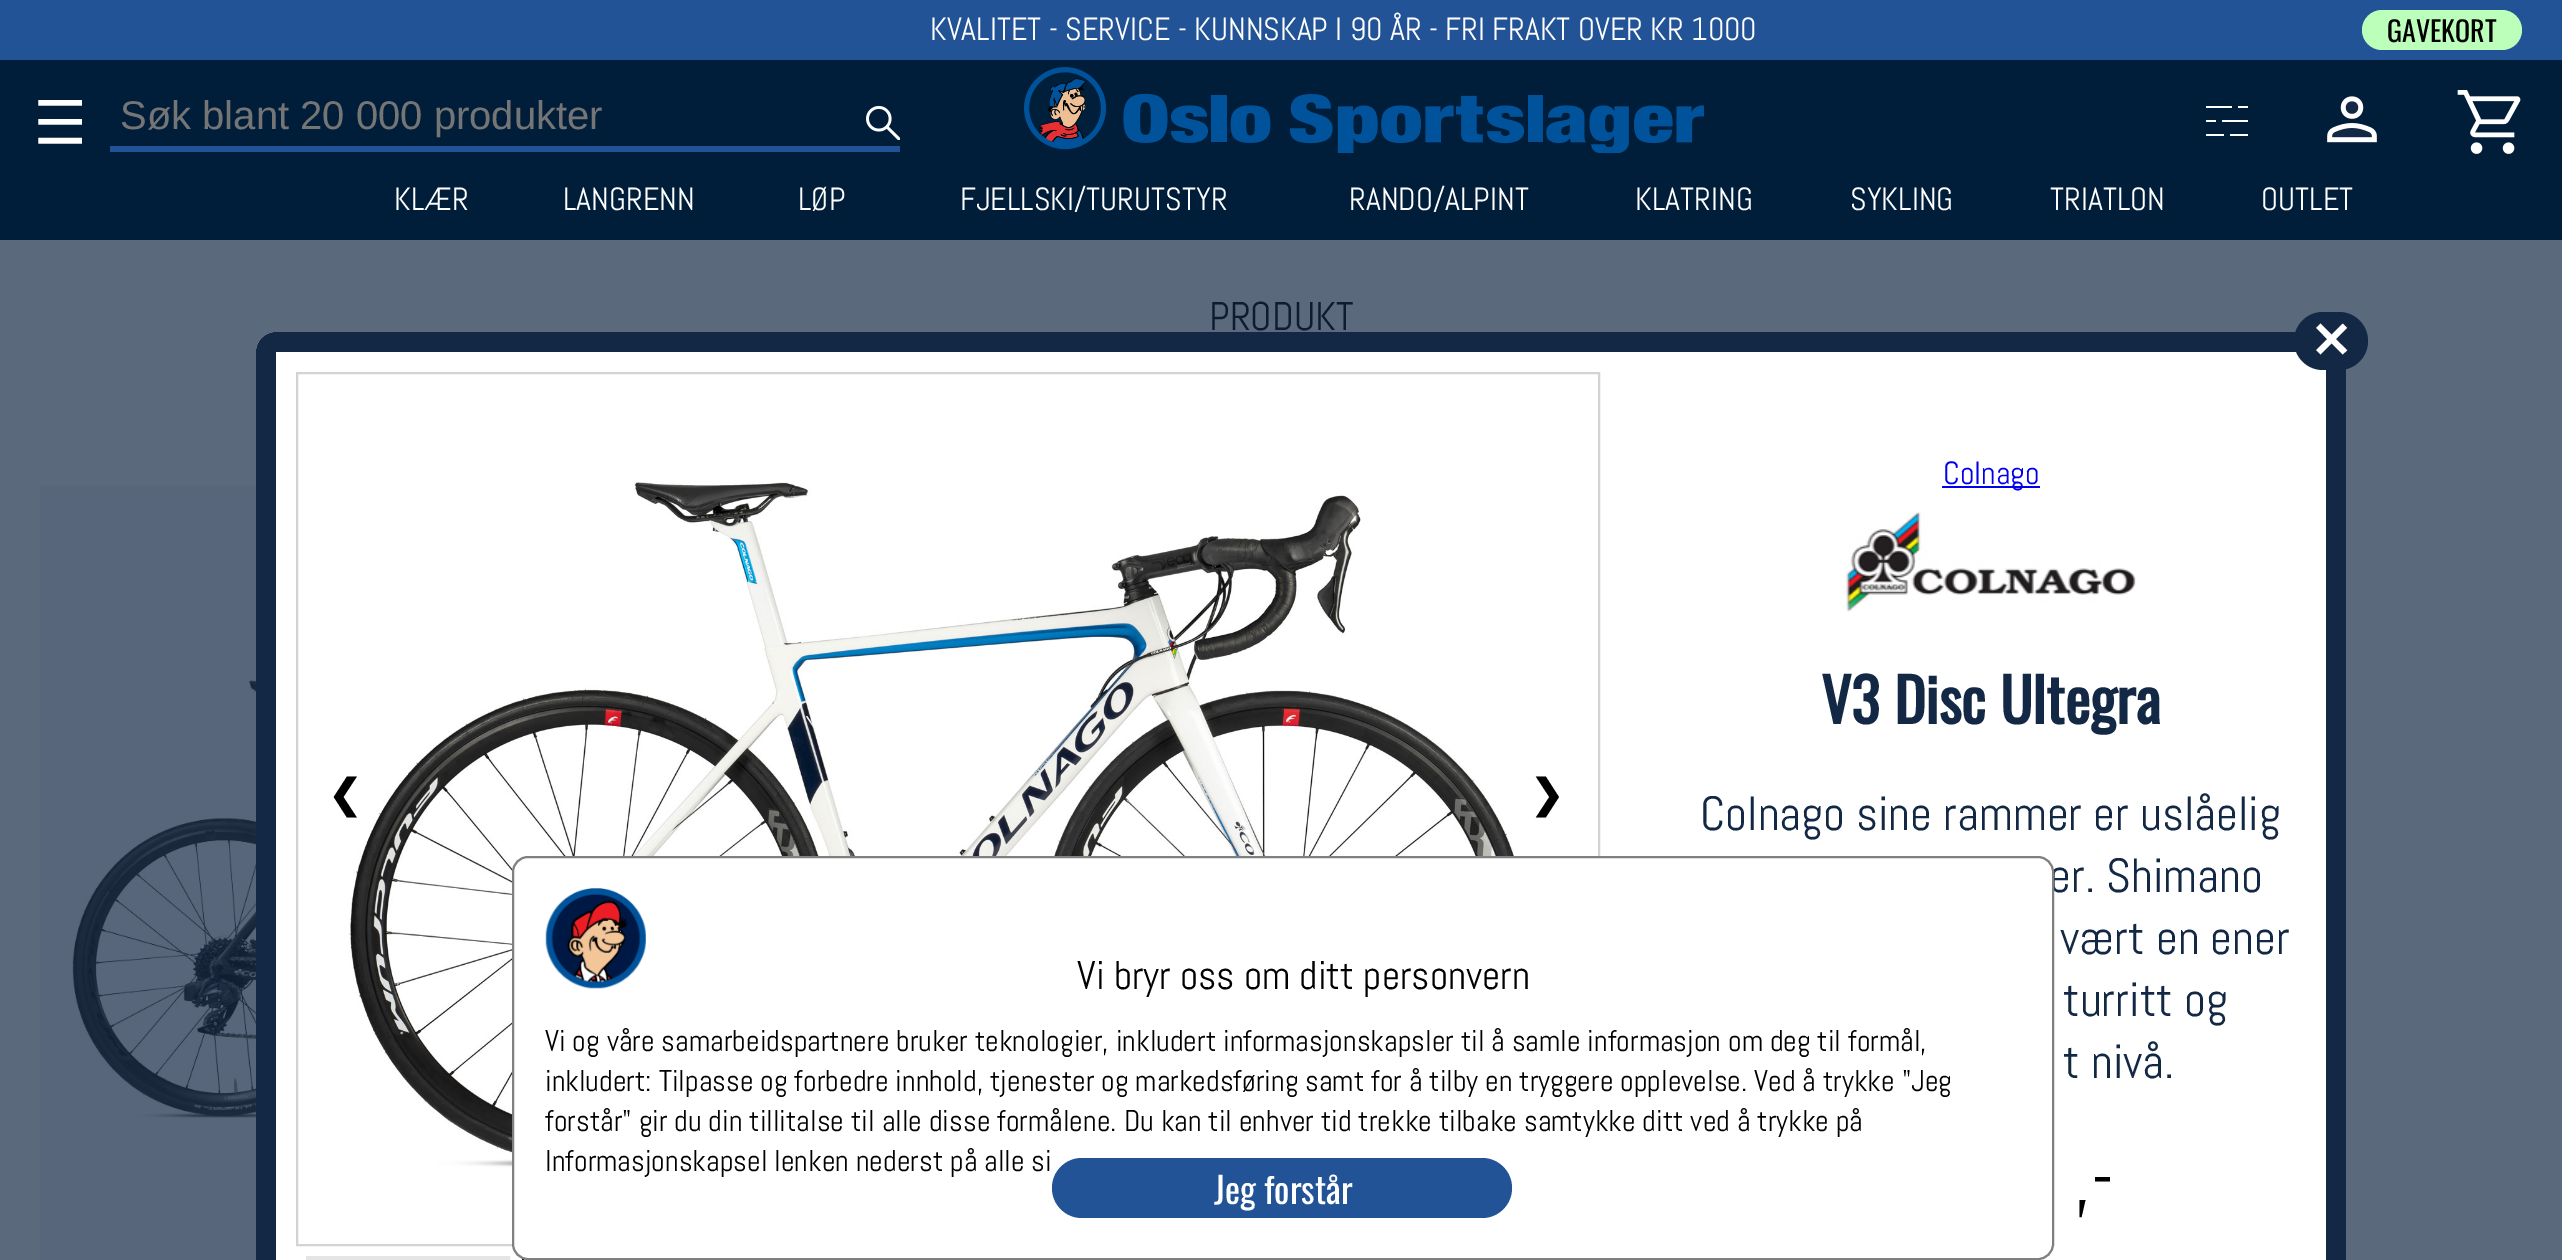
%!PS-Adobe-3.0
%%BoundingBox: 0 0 2562 1260
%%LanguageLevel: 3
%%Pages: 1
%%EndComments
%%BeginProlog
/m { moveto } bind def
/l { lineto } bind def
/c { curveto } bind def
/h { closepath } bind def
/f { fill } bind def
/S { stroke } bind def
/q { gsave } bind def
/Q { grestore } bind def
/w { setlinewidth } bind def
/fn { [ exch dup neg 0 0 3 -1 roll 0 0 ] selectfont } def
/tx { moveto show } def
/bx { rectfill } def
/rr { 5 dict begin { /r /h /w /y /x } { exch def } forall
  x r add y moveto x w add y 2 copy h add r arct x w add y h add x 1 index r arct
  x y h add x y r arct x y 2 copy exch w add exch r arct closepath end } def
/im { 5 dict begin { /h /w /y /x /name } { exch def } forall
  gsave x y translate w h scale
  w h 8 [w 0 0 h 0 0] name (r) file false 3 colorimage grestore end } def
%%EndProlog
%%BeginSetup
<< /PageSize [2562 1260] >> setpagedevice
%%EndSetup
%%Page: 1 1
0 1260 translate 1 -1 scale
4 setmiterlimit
0.353 0.412 0.486 setrgbcolor
0 0 2562 1260 bx
0.133 0.325 0.592 setrgbcolor
0 0 2562 60 bx
/Abel-Regular 32 fn
1 setgray
(KVALITET - SERVICE - KUNNSKAP I 90 ÅR - FRI FRAKT OVER KR 1000) 930 40 tx
0.733 1 0.733 setrgbcolor
2362 10 160 40 20 rr f
/Oswald-Regular 28 fn
0 setgray
(GAVEKORT) 2387 42 tx
0 0.118 0.227 setrgbcolor
0 60 2562 180 bx
/DejaVuSans-Regular 60 fn
1 setgray
q 87 100 translate 180 rotate 0 0 m (☰) show Q
0.133 0.325 0.592 setrgbcolor
110 146 790 6 bx
/LiberationSans-Regular 40 fn
0.459 setgray
(Søk blant 20 000 produkter) 120 129 tx
(image0.raw) 866 105 34 35 im
(image1.raw) 1024 67 680 86 im
1 setgray
2206 106 26 2 bx
2238 106 10 2 bx
2206 120 10 2 bx
2222 120 26 2 bx
2206 134 18 2 bx
2230 134 18 2 bx
(image2.raw) 2327 96 50 47 im
(image3.raw) 2457 90 64 64 im
/Abel-Regular 32 fn
(KLÆR) 394 210 tx
(LANGRENN) 563 210 tx
(LØP) 798 210 tx
(FJELLSKI/TURUTSTYR) 960 210 tx
(RANDO/ALPINT) 1349 210 tx
(KLATRING) 1635 210 tx
(SYKLING) 1850 210 tx
(TRIATLON) 2050 210 tx
(OUTLET) 2261 210 tx
/Abel-Regular 40 fn
0.051 0.11 0.188 setrgbcolor
(PRODUKT) 1209 330 tx
0.341 0.4 0.478 setrgbcolor
40 486 216 774 bx
(image4.raw) 72 680 184 438 im
1 setgray
276 332 m 2326 332 l 2337 332 2346 341 2346 352 c 2346 1260 l 256 1260 l 256 352 l 256 341 265 332 276 332 c h f
0.075 0.157 0.267 setrgbcolor
276 332 m 2326 332 l 2337 332 2346 341 2346 352 c 2346 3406 l 2346 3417 2337 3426 2326 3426 c 276 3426 l 265 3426 256 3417 256 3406 c 256 352 l 256 341 265 332 276 332 c h 276 332 m 2326 332 l 2326 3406 l 276 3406 l h eofill
276 332 2021 20 bx
2294 312 74 58 29 rr f
/DejaVuSans-Bold 50 fn
1 setgray
(✕) 2310 358 tx
0.827 setgray
2 w
297 373 1302 872 rectstroke
(image5.raw) 323 406 1206 765 im
/DejaVuSans-Bold 40 fn
0 setgray
(❮) 328 808 tx
(❯) 1530 808 tx
0.898 setgray
4 w
308 1258 200 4 rectstroke
0 setgray
2 w
523 1257 196 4 rectstroke
0 0 0.933 setrgbcolor
1942 486 98 2 bx
/Abel-Regular 32 fn
(Colnago) 1943 484 tx
(image6.raw) 1846 512 290 100 im
/Oswald-Bold 60 fn
0.075 0.157 0.267 setrgbcolor
(V3 Disc Ultegra) 1821 724 tx
/Abel-Regular 48 fn
(Colnago sine rammer er uslåelig) 1700 830 tx
(er. Shimano) 2049 892 tx
(vært en ener) 2060 954 tx
(turritt og) 2063 1016 tx
(t nivå.) 2063 1078 tx
/Abel-Regular 80 fn
0 setgray
(,-) 2074 1206 tx
1 setgray
513 857 1540 402 15 rr q f Q
0.502 setgray
S
(image7.raw) 545 888 101 101 im
/Abel-Regular 40 fn
0 setgray
(Vi bryr oss om ditt personvern) 1077 989 tx
/Abel-Regular 30 fn
(Vi og våre samarbeidspartnere bruker teknologier, inkludert informasjonskapsler til å samle informasjon om deg til formål,) 545 1051 tx
(inkludert: Tilpasse og forbedre innhold, tjenester og markedsføring samt for å tilby en tryggere opplevelse. Ved å trykke "Jeg) 545 1091 tx
(forstår" gir du din tillitalse til alle disse formålene. Du kan til enhver tid trekke tilbake samtykke ditt ved å trykke på) 545 1131 tx
(Informasjonskapsel lenken nederst på alle si) 545 1171 tx
0.133 0.325 0.592 setrgbcolor
1052 1158 460 60 30 rr f
/Oswald-Regular 36 fn
1 setgray
(Jeg forstår) 1214 1204 tx
showpage
%%EOF
